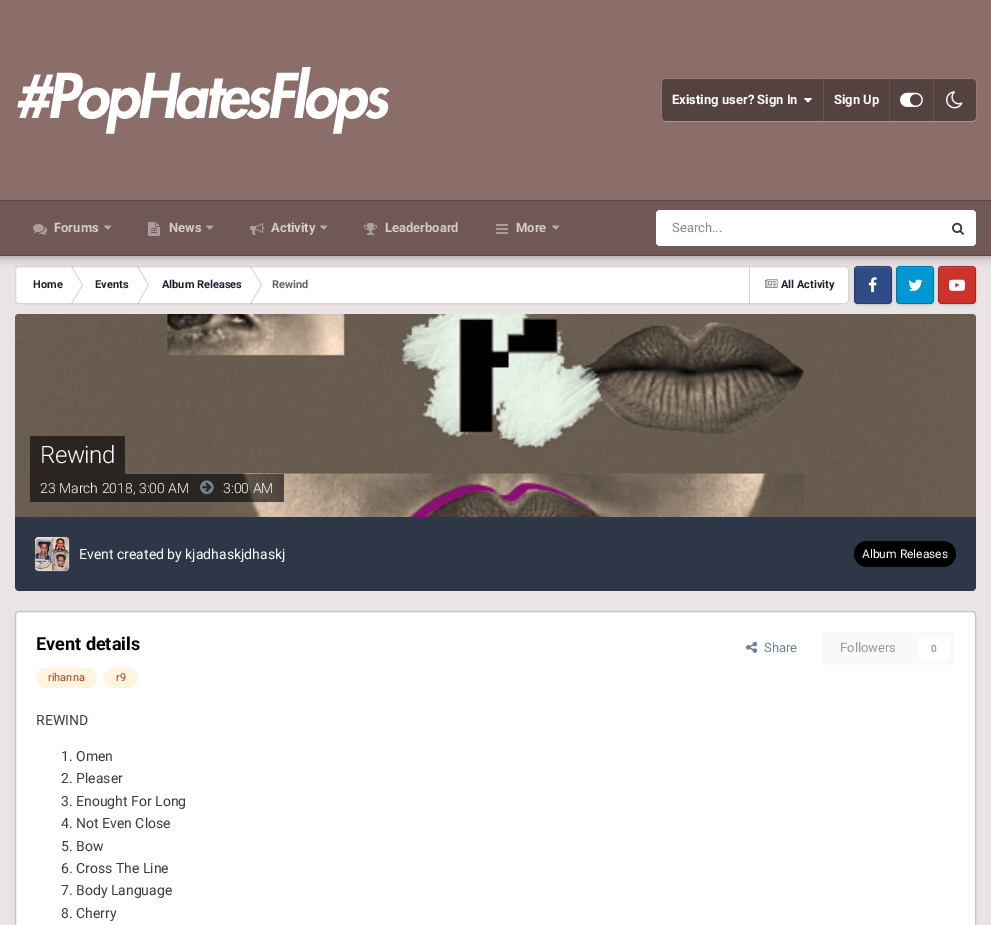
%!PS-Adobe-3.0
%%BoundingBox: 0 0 991 925
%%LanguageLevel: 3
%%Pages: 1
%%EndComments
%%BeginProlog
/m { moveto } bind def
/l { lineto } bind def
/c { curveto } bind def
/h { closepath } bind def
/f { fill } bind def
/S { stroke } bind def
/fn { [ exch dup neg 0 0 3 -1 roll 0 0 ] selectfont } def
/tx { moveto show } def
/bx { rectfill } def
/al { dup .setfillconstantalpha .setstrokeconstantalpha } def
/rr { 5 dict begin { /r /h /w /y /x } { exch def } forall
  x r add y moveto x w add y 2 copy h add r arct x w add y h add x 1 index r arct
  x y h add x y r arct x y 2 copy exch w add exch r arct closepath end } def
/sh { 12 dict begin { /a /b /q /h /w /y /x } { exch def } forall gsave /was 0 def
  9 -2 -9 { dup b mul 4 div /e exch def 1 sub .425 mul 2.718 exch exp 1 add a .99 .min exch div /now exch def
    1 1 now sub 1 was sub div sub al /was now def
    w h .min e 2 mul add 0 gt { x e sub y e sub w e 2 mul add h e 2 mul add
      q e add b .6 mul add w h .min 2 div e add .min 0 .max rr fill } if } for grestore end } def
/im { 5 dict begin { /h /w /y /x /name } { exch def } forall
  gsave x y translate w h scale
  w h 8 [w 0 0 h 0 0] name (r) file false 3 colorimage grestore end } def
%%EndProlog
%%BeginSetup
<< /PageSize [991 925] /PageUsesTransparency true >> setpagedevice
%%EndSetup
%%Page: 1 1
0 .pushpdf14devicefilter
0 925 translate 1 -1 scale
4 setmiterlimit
0.918 0.898 0.894 setrgbcolor
0 0 991 925 bx
1 setgray
15 266 834 38 4 rr f
0.843 0.847 0.851 setrgbcolor
71 266 m 72 266 l 83 285 l 82 285 l h 71 304 m 72 304 l 83 285 l 82 285 l h f
137 266 m 138 266 l 149 285 l 148 285 l h 137 304 m 138 304 l 149 285 l 148 285 l h f
250 266 m 251 266 l 262 285 l 261 285 l h 250 304 m 251 304 l 262 285 l 261 285 l h f
749 266 1 38 bx
(image11.raw) 765 279 13 9 im
0.2 al
0.208 0.235 0.255 setrgbcolor
15.5 266.5 833 37 3.5 rr S
1 al
0 setgray
854 267 38 38 4 1.5 0.1 sh
0.188 0.298 0.529 setrgbcolor
854 266 38 38 4 rr f
0.31 0.404 0.6 setrgbcolor
858 268 m 856 268 855 269 855 271 c 855 266 859 267 863 267 c 883 267 l 887 267 891 266 891 271 c 891 269 890 268 888 268 c h f
(image12.raw) 868 277 9 16 im
0.2 al
0 setgray
854.5 266.5 37 37 3.5 rr S
1 al
896 267 38 38 4 1.5 0.1 sh
0 0.592 0.827 setrgbcolor
896 266 38 38 4 rr f
0.149 0.655 0.855 setrgbcolor
900 268 m 898 268 897 269 897 271 c 897 266 901 267 905 267 c 925 267 l 929 267 933 266 933 271 c 933 269 932 268 930 268 c h f
(image13.raw) 908 279 15 12 im
0.2 al
0 setgray
896.5 266.5 37 37 3.5 rr S
1 al
938 267 38 38 4 1.5 0.1 sh
0.8 0.2 0.176 setrgbcolor
938 266 38 38 4 rr f
0.831 0.322 0.302 setrgbcolor
942 268 m 940 268 939 269 939 271 c 939 266 943 267 947 267 c 967 267 l 971 267 975 266 975 271 c 975 269 974 268 972 268 c h f
(image14.raw) 949 279 16 12 im
0.2 al
0 setgray
938.5 266.5 37 37 3.5 rr S
1 al
0 1 991 256 0 5 0.35 sh
0.545 0.431 0.416 setrgbcolor
0 0 991 200 bx
(image0.raw) 17 67 373 67 im
0.576 0.471 0.455 setrgbcolor
661.5 78.5 315 43 4.5 rr S
0.2 al
1 setgray
662 117 m 662 118 l 662 120 664 122 666 122 c 972 122 l 974 122 976 120 976 118 c 976 117 l 976 119 974 121 972 121 c 666 121 l 664 121 662 119 662 117 c h f
0.4 al
0 setgray
662 79 314 42 4 rr f
/Roboto-Bold 13 fn
1 al
1 setgray
(Existing user? Sign In) 672 104 tx
(image1.raw) 804 98 8 5 im
0.396 0.333 0.325 setrgbcolor
823 79 1 42 bx
1 setgray
(Sign Up) 834 104 tx
0.396 0.333 0.325 setrgbcolor
889 79 1 42 bx
(image2.raw) 900 92 23 15 im
933 79 1 42 bx
(image3.raw) 946 91 17 18 im
0.435 0.345 0.333 setrgbcolor
0 201 991 54 bx
0.349 0.275 0.267 setrgbcolor
0 200 991 1 bx
0 255 991 1 bx
(image4.raw) 33 224 14 11 im
0.831 0.804 0.8 setrgbcolor
(Forums) 54 232 tx
(image5.raw) 104 225 8 5 im
(image6.raw) 148 222 12 14 im
(News) 169 232 tx
(image5.raw) 206 225 8 5 im
(image7.raw) 250 223 14 12 im
(Activity) 271 232 tx
(image5.raw) 320 225 8 5 im
(image8.raw) 364 223 13 12 im
(Leaderboard) 385 232 tx
(image9.raw) 496 224 12 10 im
(More) 516 232 tx
(image5.raw) 552 225 8 5 im
1 setgray
656 210 320 36 4 rr f
/Roboto-Regular 13 fn
0.525 0.541 0.553 setrgbcolor
(Search...) 672 232 tx
(image10.raw) 952 222 12 13 im
/Roboto-Bold 11 fn
0.102 0.125 0.173 setrgbcolor
(Home) 33 288 tx
(Events) 95 288 tx
(Album Releases) 162 288 tx
0.373 0.388 0.42 setrgbcolor
(Rewind) 272 288 tx
0.102 0.125 0.173 setrgbcolor
(All Activity) 781 288 tx
(image15.raw) 15 314 961 203 im
0.6 al
0 setgray
30 436 95 38 bx
/Roboto-Light 24 fn
1 al
1 setgray
40 463 m -0.5 0 (Rewind) ashow
0.6 al
0 setgray
30 474 254 28 bx
/Roboto-Light 14 fn
1 al
1 setgray
(23 March 2018, 3:00 AM) 40 493 tx
(image16.raw) 200 480 14 15 im
(3:00 AM) 223 493 tx
0.176 0.216 0.282 setrgbcolor
15 517 m 976 517 l 976 587 l 976 589 974 591 972 591 c 19 591 l 17 591 15 589 15 587 c h f
(image17.raw) 35 537 34 34 im
0.3 al
1 setgray
35.5 537.5 33 33 3.5 rr S
/Roboto-Regular 14 fn
1 al
(Event created by kjadhaskjdhaskj) 79 559 tx
0 setgray
854 541 102 26 13 rr f
/Roboto-Regular 12 fn
1 setgray
(Album Releases) 862 558 tx
0 setgray
16 614 959 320 3 2 0.1 sh
1 setgray
16 612 959 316 3 rr f
0.776 0.765 0.765 setrgbcolor
15.5 611.5 960 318 3.5 rr S
/Roboto-Bold 18 fn
0 setgray
(Event details) 36 650 tx
1 0.957 0.875 setrgbcolor
36 668 61 20 10 rr f
/Roboto-Regular 11 fn
0.612 0.259 0.129 setrgbcolor
(rihanna) 48 681 tx
1 0.957 0.875 setrgbcolor
104 668 34 20 10 rr f
0.612 0.259 0.129 setrgbcolor
(r9) 116 681 tx
(image18.raw) 746 641 12 12 im
/Roboto-Regular 13 fn
0.443 0.502 0.588 setrgbcolor
(Share) 764 652 tx
0.976 setgray
821 632 134 33 4 rr f
0.6 setgray
(Followers) 840 652 tx
1 setgray
918 637 32 24 4 rr f
/Roboto-Bold 10 fn
0.604 0.62 0.627 setrgbcolor
(0) 931 652 tx
/Roboto-Regular 14 fn
0.208 0.235 0.255 setrgbcolor
(REWIND) 36 725 tx
(1. Omen) 61 761 tx
(2. Pleaser) 61 783 tx
(3. Enought For Long) 61 806 tx
(4. Not Even Close) 61 828 tx
(5. Bow) 61 851 tx
(6. Cross The Line) 61 873 tx
(7. Body Language) 61 895 tx
(8. Cherry) 61 918 tx
.poppdf14devicefilter showpage
%%EOF
